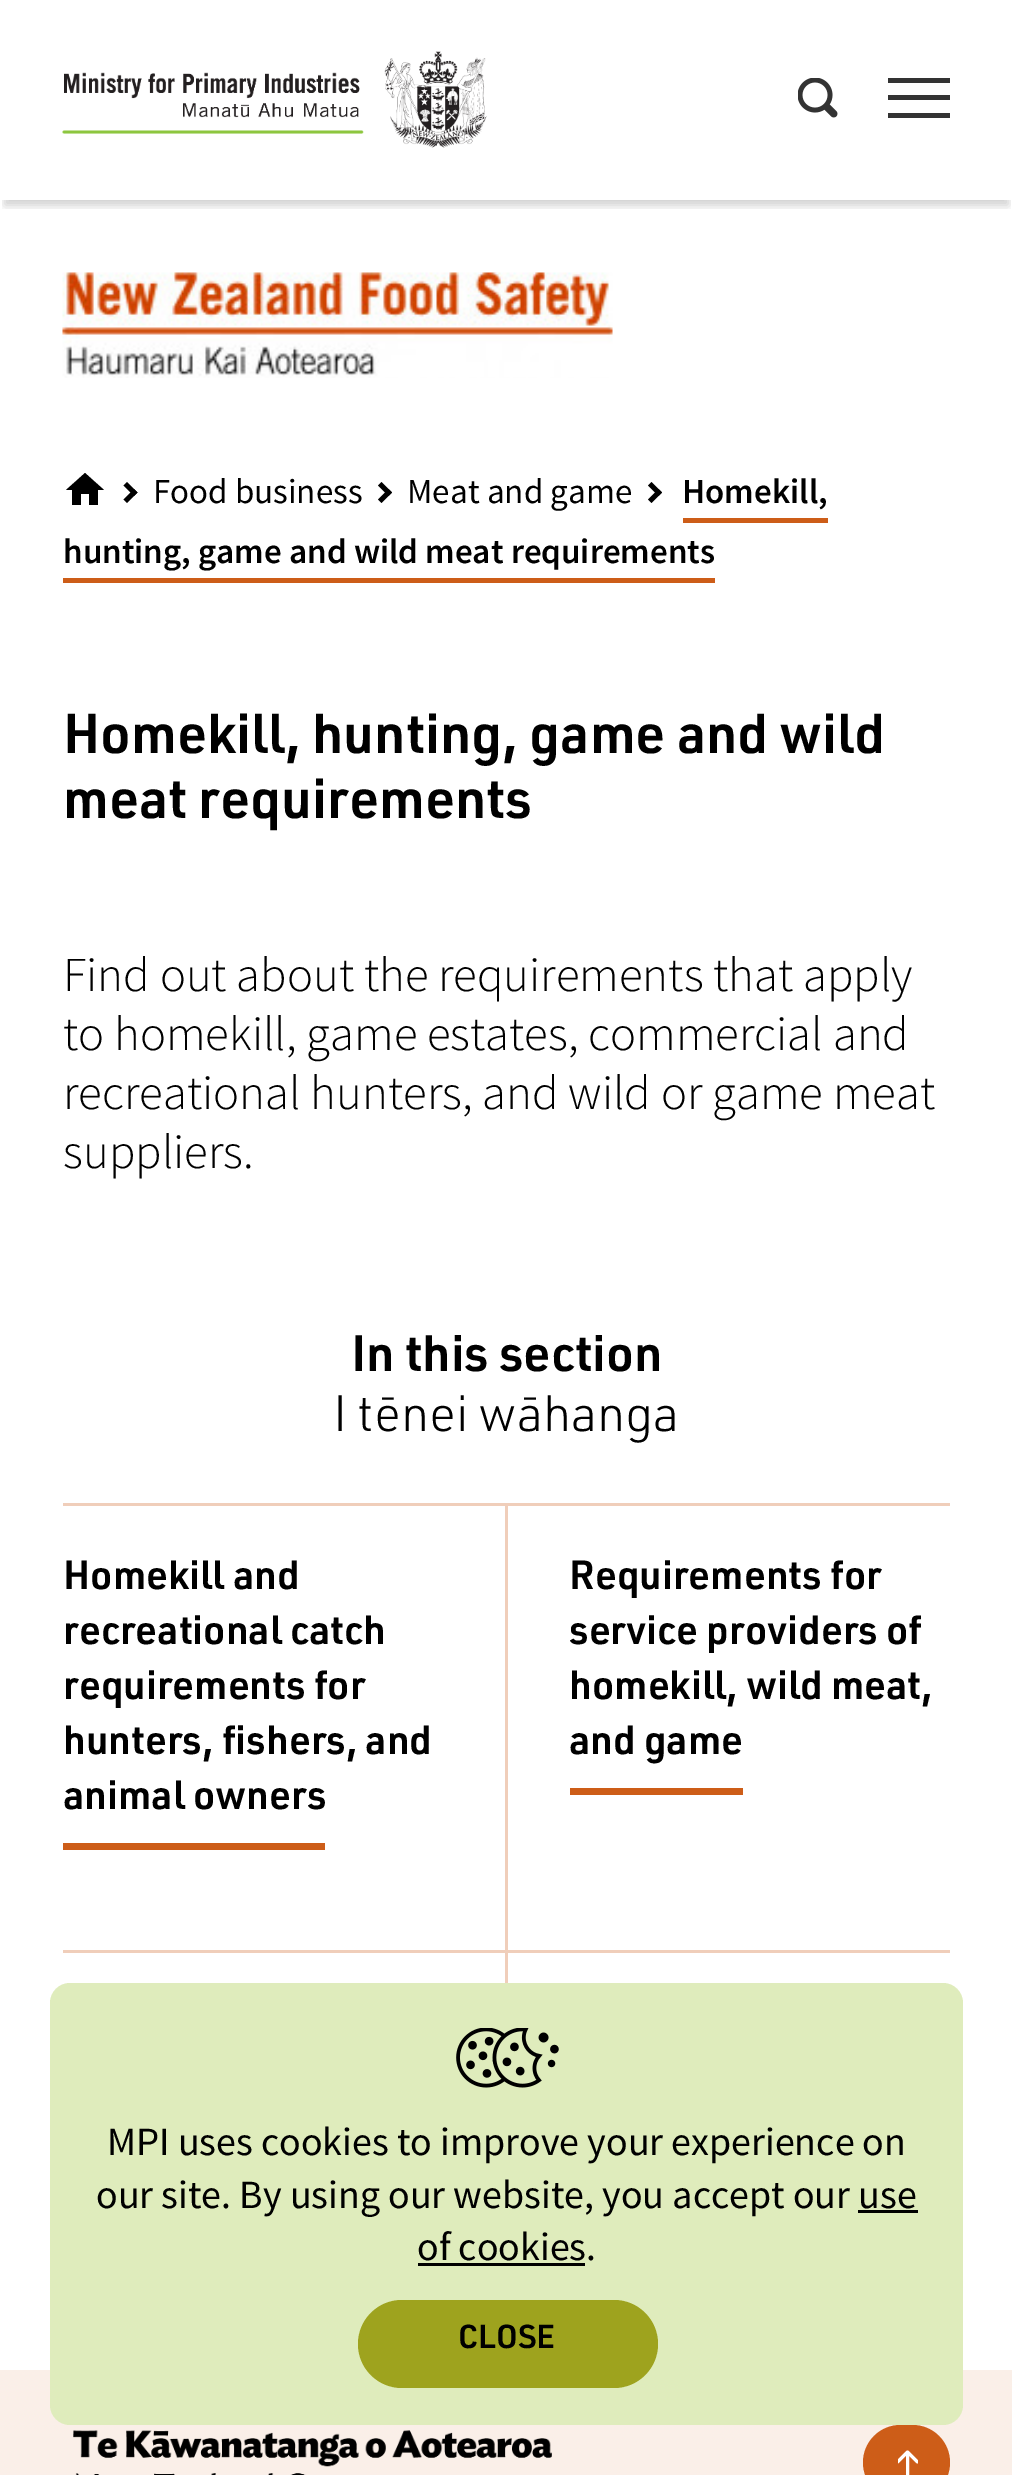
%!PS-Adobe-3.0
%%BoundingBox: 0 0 1012 2475
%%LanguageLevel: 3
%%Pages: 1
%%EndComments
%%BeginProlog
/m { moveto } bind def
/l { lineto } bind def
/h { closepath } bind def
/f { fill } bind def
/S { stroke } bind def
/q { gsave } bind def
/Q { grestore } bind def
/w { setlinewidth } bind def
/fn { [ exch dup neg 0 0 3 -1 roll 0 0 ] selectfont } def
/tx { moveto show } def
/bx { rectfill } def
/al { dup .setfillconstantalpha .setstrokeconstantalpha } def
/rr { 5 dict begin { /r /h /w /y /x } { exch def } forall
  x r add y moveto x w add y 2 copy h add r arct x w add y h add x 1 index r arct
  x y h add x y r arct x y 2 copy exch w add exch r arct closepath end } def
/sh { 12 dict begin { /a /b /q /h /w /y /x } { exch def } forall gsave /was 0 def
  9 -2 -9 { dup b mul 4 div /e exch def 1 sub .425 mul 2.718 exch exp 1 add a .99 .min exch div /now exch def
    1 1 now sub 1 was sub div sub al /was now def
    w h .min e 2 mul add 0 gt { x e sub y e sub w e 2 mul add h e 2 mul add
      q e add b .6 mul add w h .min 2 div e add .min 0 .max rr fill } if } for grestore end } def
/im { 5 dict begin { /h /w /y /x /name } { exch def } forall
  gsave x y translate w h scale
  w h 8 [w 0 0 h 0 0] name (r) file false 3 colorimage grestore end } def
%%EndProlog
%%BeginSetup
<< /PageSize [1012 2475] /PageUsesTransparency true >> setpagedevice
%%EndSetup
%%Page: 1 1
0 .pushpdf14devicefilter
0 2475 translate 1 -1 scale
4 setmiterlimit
1 setgray
0 0 1012 2475 bx
q
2 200 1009 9 rectclip
0 setgray
5 15 1003 190 0 5 0.1 sh
5 15 1003 190 0 5 0.1 sh
Q
(image0.raw) 62 51 425 97 im
(image1.raw) 798 78 40 40 im
0.2 setgray
888 78 62 5 bx
888 95 62 5 bx
888 113 62 5 bx
(image2.raw) 62 272 551 106 im
0 setgray
81 505 m 81 494 l 89 494 l 89 505 l 98 505 l 98 490 l 104 490 l 85 473 l 66 490 l 72 490 l 72 505 l h f
137.5 492.5 m 127 503 l 123.5 499.5 l 134 489 l h f
137.5 492.5 m 134 496 l 123.5 485.5 l 127 482 l h f
/SourceSansPro-Regular 35 fn
(Food business) 153 503 tx
392 492.5 m 381.5 503 l 378 499.5 l 388.5 489 l h f
392 492.5 m 388.5 496 l 378 485.5 l 381.5 482 l h f
(Meat and game) 407 503 tx
662 492.5 m 651.5 503 l 648 499.5 l 658.5 489 l h f
662 492.5 m 658.5 496 l 648 485.5 l 651.5 482 l h f
/SourceSansPro-SemiBold 35 fn
(Homekill,) 682 503 tx
0.804 0.365 0.094 setrgbcolor
683 518 145 5 bx
0 setgray
(hunting, game and wild meat requirements) 63 563 tx
0.804 0.365 0.094 setrgbcolor
63 578 652 5 bx
/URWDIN-SemiBold 55 fn
0 setgray
(Homekill, hunting, game and wild) 63 753 tx
(meat requirements) 63 818 tx
/SourceSansPro-Light 48.75 fn
(Find out about the requirements that apply) 63 991 tx
(to homekill, game estates, commercial and) 63 1050 tx
(recreational hunters, and wild or game meat) 63 1109 tx
(suppliers.) 63 1168 tx
/URWDIN-SemiBold 50 fn
(In this section) 351 1371 tx
/URWDIN-Light 50 fn
(I tēnei wāhanga) 333 1431 tx
0.941 0.808 0.729 setrgbcolor
63 1503 887 3 bx
505 1503 3 450 bx
63 1950 887 3 bx
/URWDIN-SemiBold 40 fn
0 setgray
(Homekill and) 63 1589 tx
(recreational catch) 63 1644 tx
(requirements for) 63 1699 tx
(hunters, fishers, and) 63 1754 tx
(animal owners) 63 1809 tx
0.804 0.365 0.094 setrgbcolor
63 1843 262 7 bx
0 setgray
(Requirements for) 569 1589 tx
(service providers of) 569 1644 tx
(homekill, wild meat,) 569 1699 tx
(and game) 569 1754 tx
0.804 0.365 0.094 setrgbcolor
570 1788 173 7 bx
0.941 0.808 0.729 setrgbcolor
508 1952 m 508 2345 l 505 2342 l 505 1952 l h f
0.98 0.937 0.91 setrgbcolor
0 2370 1012 105 bx
0.875 0.925 0.737 setrgbcolor
50 1983 913 442 20 rr f
(image3.raw) 456 2028 103 60 im
/SourceSansPro-Regular 40 fn
0 setgray
(MPI uses cookies to improve your experience on) 107 2155 tx
(our site. By using our website, you accept our use) 96 2208 tx
(of cookies.) 417 2260 tx
858 2210 60 3 bx
418 2263 167 3 bx
0.62 0.639 0.118 setrgbcolor
358 2300 300 88 44 rr f
/URWDIN-SemiBold 32.5 fn
0 setgray
(CLOSE) 458 2348 tx
(image4.raw) 73 2430 479 45 im
0.804 0.365 0.094 setrgbcolor
863 2425 87 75 37.5 rr f
q
898 2440 20 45 rectclip
1 setgray
2.9 w
1 setlinecap
1 setlinejoin
917.5 2462 m 907.5 2452 l 907.5 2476.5 l 907.5 2452 l 897.5 2462 l S
Q
.poppdf14devicefilter showpage
%%EOF
